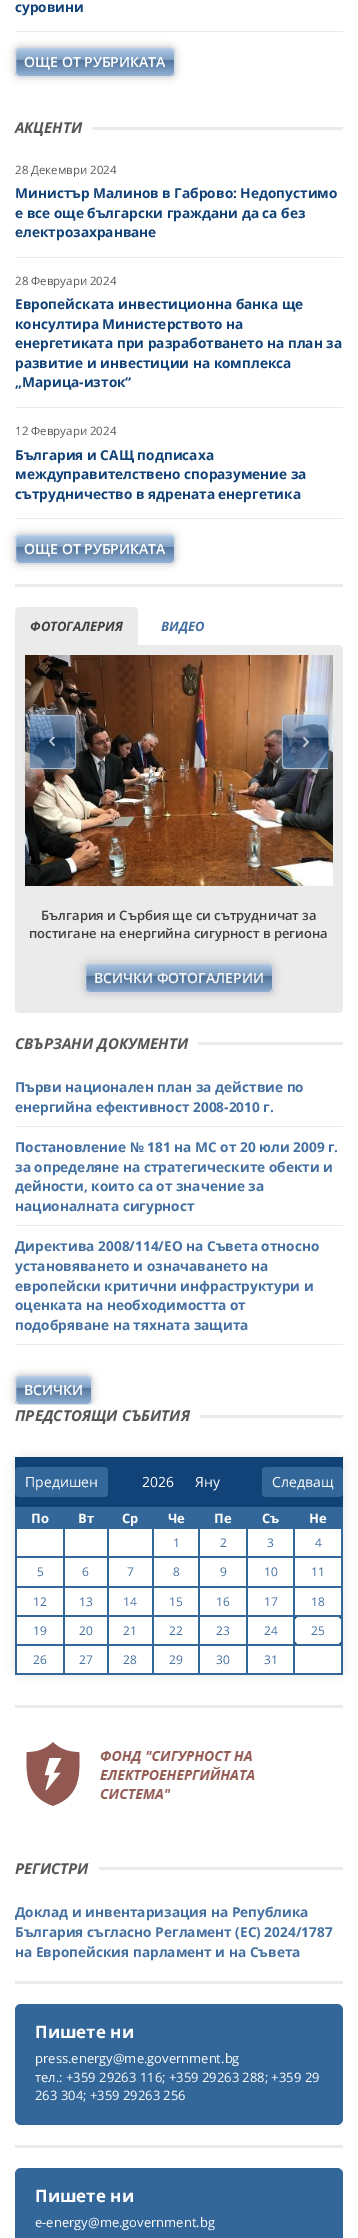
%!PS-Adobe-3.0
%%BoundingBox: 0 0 358 2238
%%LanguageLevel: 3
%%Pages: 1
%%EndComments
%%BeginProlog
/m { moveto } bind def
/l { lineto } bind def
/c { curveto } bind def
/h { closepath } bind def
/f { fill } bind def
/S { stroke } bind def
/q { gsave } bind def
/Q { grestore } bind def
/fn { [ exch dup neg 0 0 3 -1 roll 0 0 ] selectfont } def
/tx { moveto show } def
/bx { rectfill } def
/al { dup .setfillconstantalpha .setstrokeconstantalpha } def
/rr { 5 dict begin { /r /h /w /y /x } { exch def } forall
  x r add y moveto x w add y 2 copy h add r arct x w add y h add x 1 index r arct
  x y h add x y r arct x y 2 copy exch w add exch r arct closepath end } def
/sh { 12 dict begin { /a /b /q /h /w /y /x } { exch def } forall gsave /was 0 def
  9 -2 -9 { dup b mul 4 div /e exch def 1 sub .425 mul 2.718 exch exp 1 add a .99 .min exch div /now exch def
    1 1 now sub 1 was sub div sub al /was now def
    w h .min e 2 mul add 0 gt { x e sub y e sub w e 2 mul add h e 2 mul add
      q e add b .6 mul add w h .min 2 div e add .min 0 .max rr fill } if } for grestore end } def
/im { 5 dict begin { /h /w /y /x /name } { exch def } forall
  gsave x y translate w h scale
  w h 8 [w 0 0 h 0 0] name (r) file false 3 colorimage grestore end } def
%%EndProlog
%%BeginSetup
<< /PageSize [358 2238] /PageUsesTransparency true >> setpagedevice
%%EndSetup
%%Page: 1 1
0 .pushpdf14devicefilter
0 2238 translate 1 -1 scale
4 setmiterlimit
1 setgray
0 0 358 2238 bx
0.922 setgray
15 31 328 1 bx
/OpenSans-Bold 13.65 fn
0.067 0.259 0.471 setrgbcolor
(суровини) 15 12 tx
0.757 setgray
15 47 160 30 5 4 1 sh
q
15 47 160 30 5 rr clip newpath
q 15 48 m 175 48 l 175 76 l 15 76 l h clip newpath
<< /ShadingType 2 /ColorSpace /DeviceRGB /Coords [95 48 95 76] /Extend [true true] /Function << /FunctionType 3 /Domain [0 1] /Functions [<< /FunctionType 2 /Domain [0 1] /C0 [0.702 0.804 0.918] /C1 [0.51 0.631 0.765] /N 1 >> << /FunctionType 2 /Domain [0 1] /C0 [0.51 0.631 0.765] /C1 [0.329 0.467 0.62] /N 1 >> << /FunctionType 2 /Domain [0 1] /C0 [0.329 0.467 0.62] /C1 [0.329 0.467 0.62] /N 1 >> << /FunctionType 2 /Domain [0 1] /C0 [0.329 0.467 0.62] /C1 [0.573 0.694 0.831] /N 1 >>] /Bounds [0.41 0.42 0.44] /Encode [0 1 0 1 0 1 0 1] >> >> shfill Q
Q
0.831 0.867 0.906 setrgbcolor
15.5 47.5 159 29 4.5 rr S
/OpenSans-SemiBold 14 fn
1 setgray
(ОЩЕ ОТ РУБРИКАТА) 24 67 tx
0.922 setgray
15 584 328 3 bx
/OpenSans-BoldItalic 15 fn
0.341 setgray
(АКЦЕНТИ) 15 133 tx
0.922 setgray
92 127 251 3 bx
15 257 328 1 bx
/OpenSans-Regular 11.5 fn
0.341 setgray
(28 Декември 2024) 15 174 tx
/OpenSans-Bold 13.65 fn
0.067 0.259 0.471 setrgbcolor
(Министър Малинов в Габрово: Недопустимо) 15 198 tx
(е все още български граждани да са без) 15 218 tx
(електрозахранване) 15 237 tx
0.922 setgray
15 407 328 1 bx
/OpenSans-Regular 11.5 fn
0.341 setgray
(28 Февруари 2024) 15 285 tx
/OpenSans-Bold 13.65 fn
0.067 0.259 0.471 setrgbcolor
(Европейската инвестиционна банка ще) 15 309 tx
(консултира Министерството на) 15 329 tx
(енергетиката при разработването на план за) 15 348 tx
(развитие и инвестиции на комплекса) 15 368 tx
(„Марица-изток“) 15 387 tx
0.922 setgray
15 518 328 1 bx
/OpenSans-Regular 11.5 fn
0.341 setgray
(12 Февруари 2024) 15 435 tx
/OpenSans-Bold 13.65 fn
0.067 0.259 0.471 setrgbcolor
(България и САЩ подписаха) 15 460 tx
(междуправителствено споразумение за) 15 479 tx
(сътрудничество в ядрената енергетика) 15 499 tx
0.757 setgray
15 534 160 30 5 4 1 sh
q
15 534 160 30 5 rr clip newpath
q 15 535 m 175 535 l 175 563 l 15 563 l h clip newpath
<< /ShadingType 2 /ColorSpace /DeviceRGB /Coords [95 535 95 563] /Extend [true true] /Function << /FunctionType 3 /Domain [0 1] /Functions [<< /FunctionType 2 /Domain [0 1] /C0 [0.702 0.804 0.918] /C1 [0.51 0.631 0.765] /N 1 >> << /FunctionType 2 /Domain [0 1] /C0 [0.51 0.631 0.765] /C1 [0.329 0.467 0.62] /N 1 >> << /FunctionType 2 /Domain [0 1] /C0 [0.329 0.467 0.62] /C1 [0.329 0.467 0.62] /N 1 >> << /FunctionType 2 /Domain [0 1] /C0 [0.329 0.467 0.62] /C1 [0.573 0.694 0.831] /N 1 >>] /Bounds [0.41 0.42 0.44] /Encode [0 1 0 1 0 1 0 1] >> >> shfill Q
Q
0.831 0.867 0.906 setrgbcolor
15.5 534.5 159 29 4.5 rr S
/OpenSans-SemiBold 14 fn
1 setgray
(ОЩЕ ОТ РУБРИКАТА) 24 554 tx
0.922 setgray
20 607 m 133 607 l 136 607 138 609 138 612 c 138 645 l 15 645 l 15 612 l 15 609 17 607 20 607 c h f
/OpenSans-BoldItalic 13 fn
0.251 setgray
(ФОТОГАЛЕРИЯ) 30 631 tx
0.271 0.443 0.635 setrgbcolor
(ВИДЕО) 161 631 tx
0.922 setgray
15 645 m 338 645 l 341 645 343 647 343 650 c 343 1008 l 343 1011 341 1013 338 1013 c 20 1013 l 17 1013 15 1011 15 1008 c h f
(image2.raw) 25 655 308 231 im
q
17 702 m 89 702 l 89 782 l 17 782 l h 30 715 m 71 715 l 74 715 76 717 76 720 c 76 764 l 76 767 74 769 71 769 c 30 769 l h eoclip newpath
0.655 setgray
30 715 46 54 5 4 0.7 sh
Q
q
30 715 m 71 715 l 74 715 76 717 76 720 c 76 764 l 76 767 74 769 71 769 c 30 769 l h clip newpath
0.7 al
q 30 715 m 76 715 l 76 716 l 30 716 l h clip newpath
<< /ShadingType 2 /ColorSpace /DeviceRGB /Coords [53 664 53 716] /Extend [true true] /Function << /FunctionType 3 /Domain [0 1] /Functions [<< /FunctionType 2 /Domain [0 1] /C0 [0.573 0.718 0.882] /C1 [0.302 0.471 0.663] /N 1 >> << /FunctionType 2 /Domain [0 1] /C0 [0.302 0.471 0.663] /C1 [0.043 0.239 0.455] /N 1 >> << /FunctionType 2 /Domain [0 1] /C0 [0.043 0.239 0.455] /C1 [0.043 0.239 0.455] /N 1 >> << /FunctionType 2 /Domain [0 1] /C0 [0.043 0.239 0.455] /C1 [0.388 0.565 0.757] /N 1 >>] /Bounds [0.41 0.42 0.44] /Encode [0 1 0 1 0 1 0 1] >> >> shfill Q
q 30 716 m 76 716 l 76 768 l 30 768 l h clip newpath
<< /ShadingType 2 /ColorSpace /DeviceRGB /Coords [53 716 53 768] /Extend [true true] /Function << /FunctionType 3 /Domain [0 1] /Functions [<< /FunctionType 2 /Domain [0 1] /C0 [0.573 0.718 0.882] /C1 [0.302 0.471 0.663] /N 1 >> << /FunctionType 2 /Domain [0 1] /C0 [0.302 0.471 0.663] /C1 [0.043 0.239 0.455] /N 1 >> << /FunctionType 2 /Domain [0 1] /C0 [0.043 0.239 0.455] /C1 [0.043 0.239 0.455] /N 1 >> << /FunctionType 2 /Domain [0 1] /C0 [0.043 0.239 0.455] /C1 [0.388 0.565 0.757] /N 1 >>] /Bounds [0.41 0.42 0.44] /Encode [0 1 0 1 0 1 0 1] >> >> shfill Q
q 30 768 m 76 768 l 76 769 l 30 769 l h clip newpath
<< /ShadingType 2 /ColorSpace /DeviceRGB /Coords [53 768 53 820] /Extend [true true] /Function << /FunctionType 3 /Domain [0 1] /Functions [<< /FunctionType 2 /Domain [0 1] /C0 [0.573 0.718 0.882] /C1 [0.302 0.471 0.663] /N 1 >> << /FunctionType 2 /Domain [0 1] /C0 [0.302 0.471 0.663] /C1 [0.043 0.239 0.455] /N 1 >> << /FunctionType 2 /Domain [0 1] /C0 [0.043 0.239 0.455] /C1 [0.043 0.239 0.455] /N 1 >> << /FunctionType 2 /Domain [0 1] /C0 [0.043 0.239 0.455] /C1 [0.388 0.565 0.757] /N 1 >>] /Bounds [0.41 0.42 0.44] /Encode [0 1 0 1 0 1 0 1] >> >> shfill Q
Q
0.7 al
0.757 0.808 0.867 setrgbcolor
30 715 m 71 715 l 74 715 76 717 76 720 c 76 764 l 76 767 74 769 71 769 c 30 769 l h 30 716 m 71 716 l 73 716 75 718 75 720 c 75 764 l 75 766 73 768 71 768 c 30 768 l h eofill
1 al
(image0.raw) 49 737 6 10 im
q
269 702 m 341 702 l 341 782 l 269 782 l h 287 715 m 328 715 l 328 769 l 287 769 l 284 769 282 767 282 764 c 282 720 l 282 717 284 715 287 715 c h eoclip newpath
0.655 setgray
282 715 46 54 5 4 0.7 sh
Q
q
287 715 m 328 715 l 328 769 l 287 769 l 284 769 282 767 282 764 c 282 720 l 282 717 284 715 287 715 c h clip newpath
0.7 al
q 282 715 m 328 715 l 328 716 l 282 716 l h clip newpath
<< /ShadingType 2 /ColorSpace /DeviceRGB /Coords [306 664 306 716] /Extend [true true] /Function << /FunctionType 3 /Domain [0 1] /Functions [<< /FunctionType 2 /Domain [0 1] /C0 [0.573 0.718 0.882] /C1 [0.302 0.471 0.663] /N 1 >> << /FunctionType 2 /Domain [0 1] /C0 [0.302 0.471 0.663] /C1 [0.043 0.239 0.455] /N 1 >> << /FunctionType 2 /Domain [0 1] /C0 [0.043 0.239 0.455] /C1 [0.043 0.239 0.455] /N 1 >> << /FunctionType 2 /Domain [0 1] /C0 [0.043 0.239 0.455] /C1 [0.388 0.565 0.757] /N 1 >>] /Bounds [0.41 0.42 0.44] /Encode [0 1 0 1 0 1 0 1] >> >> shfill Q
q 282 716 m 328 716 l 328 768 l 282 768 l h clip newpath
<< /ShadingType 2 /ColorSpace /DeviceRGB /Coords [306 716 306 768] /Extend [true true] /Function << /FunctionType 3 /Domain [0 1] /Functions [<< /FunctionType 2 /Domain [0 1] /C0 [0.573 0.718 0.882] /C1 [0.302 0.471 0.663] /N 1 >> << /FunctionType 2 /Domain [0 1] /C0 [0.302 0.471 0.663] /C1 [0.043 0.239 0.455] /N 1 >> << /FunctionType 2 /Domain [0 1] /C0 [0.043 0.239 0.455] /C1 [0.043 0.239 0.455] /N 1 >> << /FunctionType 2 /Domain [0 1] /C0 [0.043 0.239 0.455] /C1 [0.388 0.565 0.757] /N 1 >>] /Bounds [0.41 0.42 0.44] /Encode [0 1 0 1 0 1 0 1] >> >> shfill Q
q 282 768 m 328 768 l 328 769 l 282 769 l h clip newpath
<< /ShadingType 2 /ColorSpace /DeviceRGB /Coords [306 768 306 820] /Extend [true true] /Function << /FunctionType 3 /Domain [0 1] /Functions [<< /FunctionType 2 /Domain [0 1] /C0 [0.573 0.718 0.882] /C1 [0.302 0.471 0.663] /N 1 >> << /FunctionType 2 /Domain [0 1] /C0 [0.302 0.471 0.663] /C1 [0.043 0.239 0.455] /N 1 >> << /FunctionType 2 /Domain [0 1] /C0 [0.043 0.239 0.455] /C1 [0.043 0.239 0.455] /N 1 >> << /FunctionType 2 /Domain [0 1] /C0 [0.043 0.239 0.455] /C1 [0.388 0.565 0.757] /N 1 >>] /Bounds [0.41 0.42 0.44] /Encode [0 1 0 1 0 1 0 1] >> >> shfill Q
Q
0.7 al
287 715 m 328 715 l 328 769 l 287 769 l 284 769 282 767 282 764 c 282 720 l 282 717 284 715 287 715 c h 287 716 m 328 716 l 328 768 l 287 768 l 285 768 283 766 283 764 c 283 720 l 283 718 285 716 287 716 c h eofill
1 al
(image1.raw) 303 737 6 10 im
/OpenSans-SemiBold 13 fn
0.251 setgray
(България и Сърбия ще си сътрудничат за) 41 920 tx
(постигане на енергийна сигурност в региона) 29 938 tx
0.733 setgray
85 963 188 30 5 4 1 sh
q
85 963 188 30 5 rr clip newpath
q 85 964 m 273 964 l 273 992 l 85 992 l h clip newpath
<< /ShadingType 2 /ColorSpace /DeviceRGB /Coords [179 964 179 992] /Extend [true true] /Function << /FunctionType 3 /Domain [0 1] /Functions [<< /FunctionType 2 /Domain [0 1] /C0 [0.678 0.78 0.894] /C1 [0.486 0.608 0.741] /N 1 >> << /FunctionType 2 /Domain [0 1] /C0 [0.486 0.608 0.741] /C1 [0.306 0.443 0.596] /N 1 >> << /FunctionType 2 /Domain [0 1] /C0 [0.306 0.443 0.596] /C1 [0.306 0.443 0.596] /N 1 >> << /FunctionType 2 /Domain [0 1] /C0 [0.306 0.443 0.596] /C1 [0.549 0.671 0.808] /N 1 >>] /Bounds [0.41 0.42 0.44] /Encode [0 1 0 1 0 1 0 1] >> >> shfill Q
Q
0.808 0.843 0.882 setrgbcolor
85.5 963.5 187 29 4.5 rr S
/OpenSans-SemiBold 14 fn
0.976 setgray
(ВСИЧКИ ФОТОГАЛЕРИИ) 94 983 tx
/OpenSans-BoldItalic 15 fn
0.341 setgray
(СВЪРЗАНИ ДОКУМЕНТИ) 15 1049 tx
0.922 setgray
198 1042 145 3 bx
15 1126 328 1 bx
/OpenSans-Bold 13.65 fn
0.271 0.443 0.635 setrgbcolor
(Първи национален план за действие по) 15 1092 tx
(енергийна ефективност 2008-2010 г.) 15 1112 tx
0.922 setgray
15 1225 328 1 bx
0.271 0.443 0.635 setrgbcolor
(Постановление № 181 на МС от 20 юли 2009 г.) 15 1152 tx
(за определяне на стратегическите обекти и) 15 1172 tx
(дейности, които са от значение за) 15 1191 tx
(националната сигурност) 15 1211 tx
0.922 setgray
15 1344 328 1 bx
0.271 0.443 0.635 setrgbcolor
(Директива 2008/114/ЕО на Съвета относно) 15 1251 tx
(установяването и означаването на) 15 1271 tx
(европейски критични инфраструктури и) 15 1291 tx
(оценката на необходимостта от) 15 1310 tx
(подобряване на тяхната защита) 15 1330 tx
0.757 setgray
15 1375 77 30 5 4 1 sh
q
15 1375 77 30 5 rr clip newpath
q 15 1376 m 92 1376 l 92 1404 l 15 1404 l h clip newpath
<< /ShadingType 2 /ColorSpace /DeviceRGB /Coords [54 1376 54 1404] /Extend [true true] /Function << /FunctionType 3 /Domain [0 1] /Functions [<< /FunctionType 2 /Domain [0 1] /C0 [0.702 0.804 0.918] /C1 [0.51 0.631 0.765] /N 1 >> << /FunctionType 2 /Domain [0 1] /C0 [0.51 0.631 0.765] /C1 [0.329 0.467 0.62] /N 1 >> << /FunctionType 2 /Domain [0 1] /C0 [0.329 0.467 0.62] /C1 [0.329 0.467 0.62] /N 1 >> << /FunctionType 2 /Domain [0 1] /C0 [0.329 0.467 0.62] /C1 [0.573 0.694 0.831] /N 1 >>] /Bounds [0.41 0.42 0.44] /Encode [0 1 0 1 0 1 0 1] >> >> shfill Q
Q
0.831 0.867 0.906 setrgbcolor
15.5 1375.5 76 29 4.5 rr S
/OpenSans-SemiBold 14 fn
1 setgray
(ВСИЧКИ) 24 1395 tx
15 1405 81 7 bx
/OpenSans-BoldItalic 15 fn
0.341 setgray
(ПРЕДСТОЯЩИ СЪБИТИЯ) 15 1421 tx
0.922 setgray
200 1415 143 3 bx
0 setgray
15 1457 328 218 8 5 0.1 sh
1 setgray
15 1457 328 218 8 rr f
0.067 0.259 0.471 setrgbcolor
15 1457 328 50 bx
0.2 0.4 0.6 setrgbcolor
15 1467 93 30 4 rr f
/OpenSans-Regular 14 fn
1 setgray
(Предишен) 25 1487 tx
(2026) 142 1487 tx
(Яну) 195 1487 tx
0.2 0.4 0.6 setrgbcolor
262 1467 81 30 4 rr f
1 setgray
(Следващ) 272 1487 tx
0.2 0.4 0.6 setrgbcolor
15 1507 328 2 bx
341 1507 2 168 bx
15 1673 328 2 bx
15 1507 2 168 bx
17 1509 324 18 bx
/OpenSans-Bold 13 fn
1 setgray
(По) 31 1523 tx
(Вт) 78 1523 tx
(Ср) 122 1523 tx
(Че) 168 1523 tx
(Пе) 214 1523 tx
(Съ) 262 1523 tx
0.2 0.4 0.6 setrgbcolor
293 1644 2 31 bx
293 1644 50 2 bx
293 1615 2 31 bx
293 1615 50 2 bx
293 1586 2 31 bx
293 1586 50 2 bx
293 1556 2 32 bx
293 1556 50 2 bx
293 1527 2 31 bx
246 1644 2 31 bx
246 1644 49 2 bx
246 1615 2 31 bx
246 1615 49 2 bx
246 1586 2 31 bx
246 1586 49 2 bx
246 1556 2 32 bx
246 1556 49 2 bx
246 1527 2 31 bx
198 1644 2 31 bx
198 1644 50 2 bx
198 1615 2 31 bx
198 1615 50 2 bx
198 1586 2 31 bx
198 1586 50 2 bx
198 1556 2 32 bx
198 1556 50 2 bx
198 1527 2 31 bx
152 1644 2 31 bx
152 1644 48 2 bx
152 1615 2 31 bx
152 1615 48 2 bx
152 1586 2 31 bx
152 1586 48 2 bx
152 1556 2 32 bx
152 1556 48 2 bx
152 1527 2 31 bx
107 1644 2 31 bx
107 1644 47 2 bx
107 1615 2 31 bx
107 1615 47 2 bx
107 1586 2 31 bx
107 1586 47 2 bx
107 1556 2 32 bx
107 1556 47 2 bx
107 1527 2 31 bx
63 1644 2 31 bx
63 1644 46 2 bx
63 1615 2 31 bx
63 1615 46 2 bx
63 1586 2 31 bx
63 1586 46 2 bx
63 1556 2 32 bx
63 1556 46 2 bx
63 1527 2 31 bx
15 1527 328 2 bx
1 setgray
(Не) 309 1523 tx
0.2 0.4 0.6 setrgbcolor
15 1556 50 2 bx
/OpenSans-Regular 12 fn
0.271 0.443 0.635 setrgbcolor
(1) 173 1547 tx
(2) 220 1547 tx
(3) 267 1547 tx
(4) 315 1547 tx
0.2 0.4 0.6 setrgbcolor
15 1586 50 2 bx
0.271 0.443 0.635 setrgbcolor
(5) 37 1576 tx
(6) 82 1576 tx
(7) 127 1576 tx
(8) 173 1576 tx
(9) 220 1576 tx
(10) 264 1576 tx
(11) 311 1576 tx
0.2 0.4 0.6 setrgbcolor
15 1615 50 2 bx
0.271 0.443 0.635 setrgbcolor
(12) 33 1606 tx
(13) 79 1606 tx
(14) 123 1606 tx
(15) 169 1606 tx
(16) 216 1606 tx
(17) 264 1606 tx
(18) 311 1606 tx
0.2 0.4 0.6 setrgbcolor
15 1644 50 2 bx
0.271 0.443 0.635 setrgbcolor
(19) 33 1635 tx
(20) 79 1635 tx
(21) 123 1635 tx
(22) 169 1635 tx
(23) 216 1635 tx
(24) 264 1635 tx
0.067 0.259 0.471 setrgbcolor
295 1617 46 27 bx
1 setgray
295 1617 46 27 4 rr f
0.271 0.443 0.635 setrgbcolor
(25) 311 1635 tx
(26) 33 1664 tx
(27) 79 1664 tx
(28) 123 1664 tx
(29) 169 1664 tx
(30) 216 1664 tx
(31) 264 1664 tx
0.922 setgray
15 1705 328 3 bx
(image3.raw) 26 1742 229 64 im
/OpenSans-BoldItalic 15 fn
0.341 setgray
(РЕГИСТРИ) 15 1874 tx
0.922 setgray
99 1867 244 3 bx
/OpenSans-Bold 13.65 fn
0.271 0.443 0.635 setrgbcolor
(Доклад и инвентаризация на Република) 15 1917 tx
(България съгласно Регламент \(ЕС\) 2024/1787) 15 1937 tx
(на Европейския парламент и на Съвета) 15 1957 tx
0.922 setgray
15 1981 328 3 bx
0.2 0.4 0.6 setrgbcolor
15 2004 328 121 6 rr f
/OpenSans-Bold 17 fn
1 setgray
(Пишете ни) 35 2038 tx
/OpenSans-Regular 13 fn
(press.energy@me.government.bg) 35 2063 tx
(тел.: +359 29263 116; +359 29263 288; +359 29) 35 2082 tx
(263 304; +359 29263 256) 35 2100 tx
0.922 setgray
15 2145 328 3 bx
0.2 0.4 0.6 setrgbcolor
15 2168 328 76 6 rr f
/OpenSans-Bold 17 fn
1 setgray
(Пишете ни) 35 2202 tx
/OpenSans-Regular 13 fn
(e-energy@me.government.bg) 35 2227 tx
.poppdf14devicefilter showpage
%%EOF
